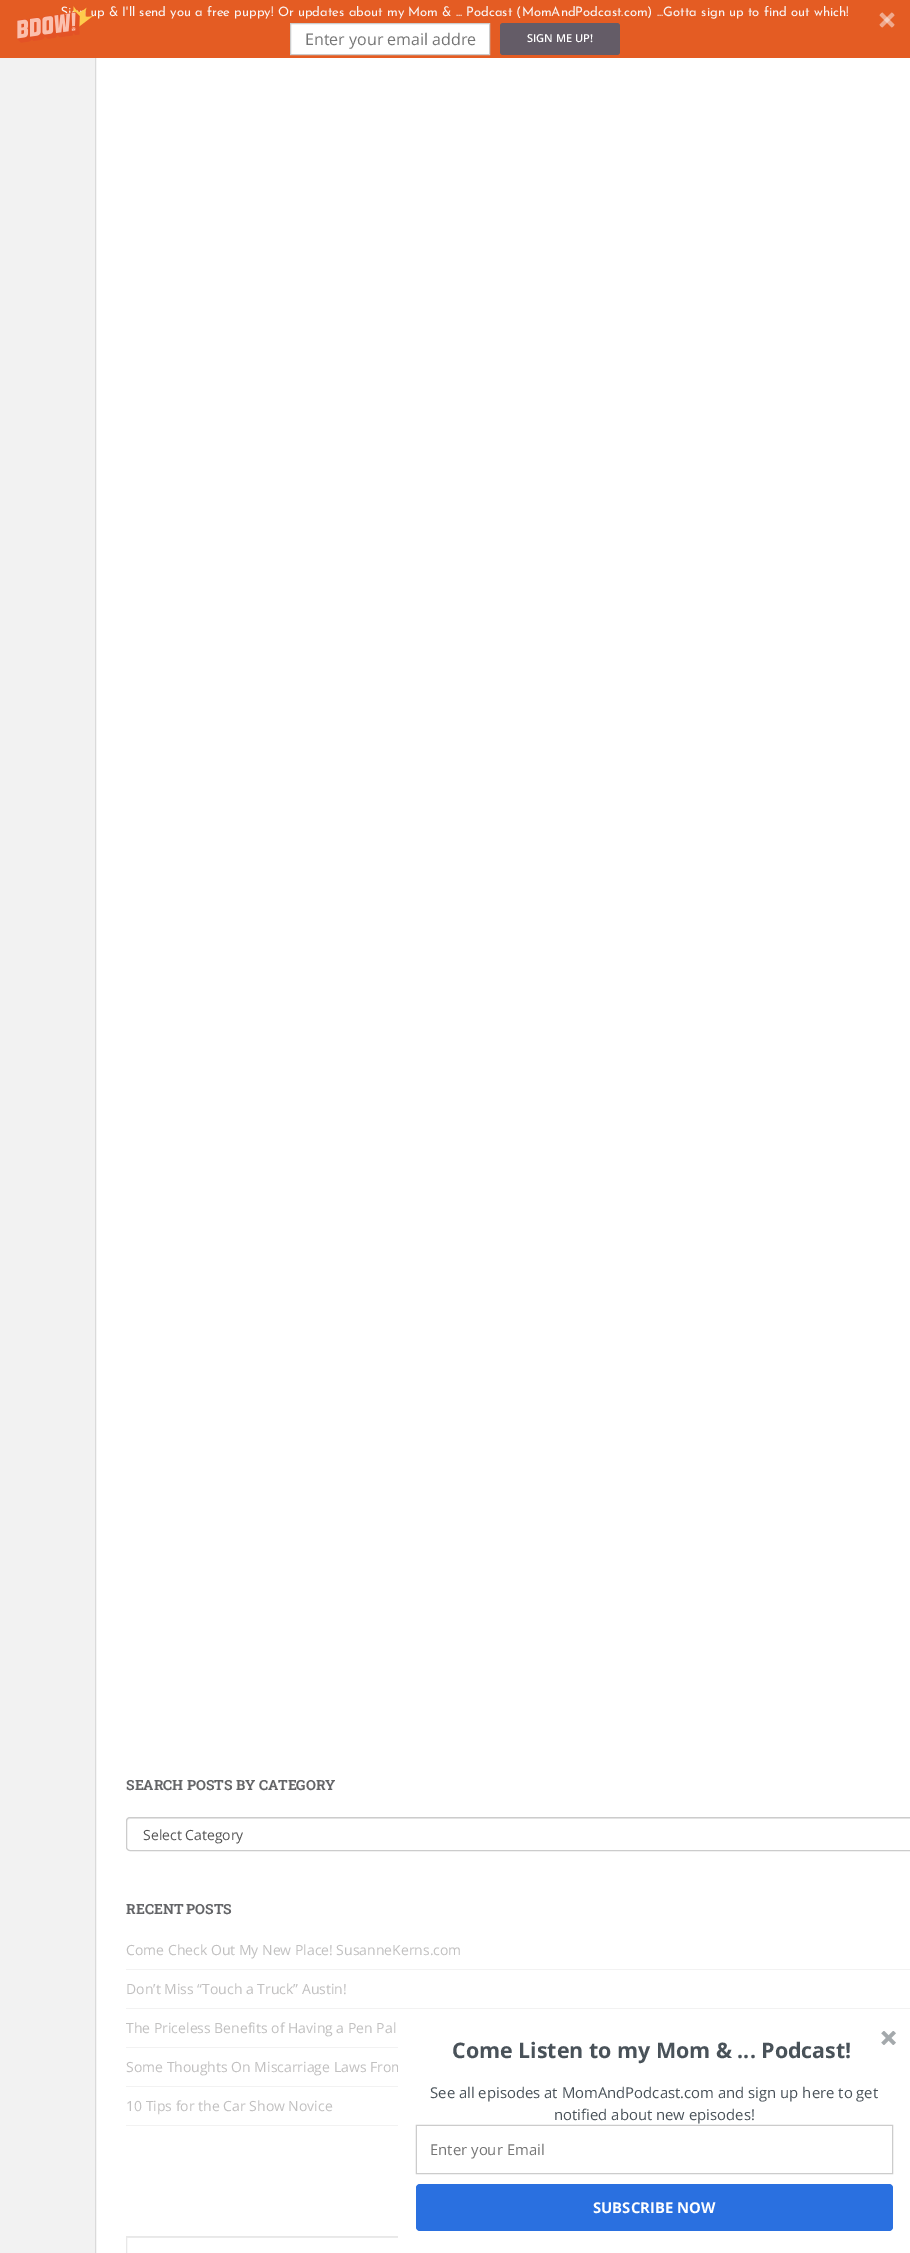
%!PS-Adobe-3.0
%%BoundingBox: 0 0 910 2253
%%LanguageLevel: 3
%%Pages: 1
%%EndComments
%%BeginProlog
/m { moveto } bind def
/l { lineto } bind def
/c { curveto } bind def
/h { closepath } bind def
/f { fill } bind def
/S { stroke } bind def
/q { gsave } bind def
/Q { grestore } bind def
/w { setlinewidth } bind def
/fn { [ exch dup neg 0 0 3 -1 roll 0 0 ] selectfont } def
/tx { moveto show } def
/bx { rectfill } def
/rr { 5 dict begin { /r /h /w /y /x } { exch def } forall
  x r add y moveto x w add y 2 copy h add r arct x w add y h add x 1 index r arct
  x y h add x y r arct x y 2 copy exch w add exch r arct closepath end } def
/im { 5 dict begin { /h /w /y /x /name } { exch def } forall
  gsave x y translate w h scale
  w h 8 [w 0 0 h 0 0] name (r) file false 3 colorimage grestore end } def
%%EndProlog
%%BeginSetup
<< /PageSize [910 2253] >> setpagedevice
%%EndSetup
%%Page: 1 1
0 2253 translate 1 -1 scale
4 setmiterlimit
0.949 setgray
0 0 910 2253 bx
1 setgray
96 58 814 2195 bx
0.855 setgray
95.5 -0.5 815 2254 rectstroke
0.894 0.361 0.137 setrgbcolor
0 0 910 58 bx
/JosefinSans-Regular 13 fn
0.98 0.965 0.965 setrgbcolor
(up & I'll send you a free puppy! Or updates about my Mom & ... Podcast \(MomAndPodcast.com\) ...Gotta sign up to find out which!) 90 16 tx
(image0.raw) 17 6 77 37 im
(image1.raw) 879 12 16 16 im
1 setgray
290.5 23.5 m 489.5 23.5 l 489.5 54.5 l 290.5 54.5 l h q f Q
0.8 setgray
S
/OpenSans-Regular 16 fn
0.459 setgray
(Enter your email addre) 305 45 tx
0.392 0.361 0.404 setrgbcolor
500 23 120 32 3 rr f
/OpenSans-SemiBold 11 fn
1 setgray
(SIGN ME UP!) 527 42 tx
/RobotoSlab-Bold 14 fn
0.388 0.392 0.404 setrgbcolor
(SEARCH POSTS BY CATEGORY) 126 1790 tx
0.925 setgray
130 1819 m 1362 1819 l 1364 1819 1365 1820 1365 1822 c 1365 1821 l 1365 1819 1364 1818 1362 1818 c 130 1818 l 128 1818 127 1819 127 1821 c 127 1822 l 127 1820 128 1819 130 1819 c h f
0.8 setgray
126.5 1817.5 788 33 3.5 rr S
/OpenSans-Regular 14 fn
0.333 setgray
(Select Category) 143 1840 tx
/RobotoSlab-Bold 14 fn
0.388 0.392 0.404 setrgbcolor
(RECENT POSTS) 126 1914 tx
0.949 setgray
126 1969 784 1 bx
/OpenSans-Regular 14 fn
0.757 0.753 0.753 setrgbcolor
(Come Check Out My New Place! SusanneKerns.com) 126 1955 tx
0.949 setgray
126 2008 784 1 bx
0.757 0.753 0.753 setrgbcolor
(Don’t Miss “Touch a Truck” Austin!) 126 1994 tx
0.949 setgray
126 2047 272 1 bx
0.757 0.753 0.753 setrgbcolor
(The Priceless Benefits of Having a Pen Pal) 126 2033 tx
0.949 setgray
126 2086 272 1 bx
0.757 0.753 0.753 setrgbcolor
(Some Thoughts On Miscarriage Laws From) 126 2072 tx
0.949 setgray
126 2125 272 1 bx
0.757 0.753 0.753 setrgbcolor
(10 Tips for the Car Show Novice) 126 2111 tx
0.925 setgray
127 2237 271 1 bx
0.91 setgray
126.5 2236.5 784 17 rectstroke
1 setgray
398 2017 512 236 4 rr f
(image2.raw) 881 2031 15 14 im
/OpenSans-Bold 21.4 fn
0.286 0.322 0.349 setrgbcolor
(Come Listen to my Mom & ... Podcast!) 452 2058 tx
/OpenSans-Regular 14.9 fn
(See all episodes at MomAndPodcast.com and sign up here to get) 430 2098 tx
(notified about new episodes!) 554 2120 tx
0.8 setgray
0.9 w
416.45 2125.45 476.1 48.1 rectstroke
0.459 setgray
(Enter your Email) 430 2155 tx
0.165 0.439 0.878 setrgbcolor
416 2184 477 47 4 rr f
/OpenSans-Bold 14.9 fn
1 setgray
(SUBSCRIBE NOW) 593 2213 tx
showpage
%%EOF
